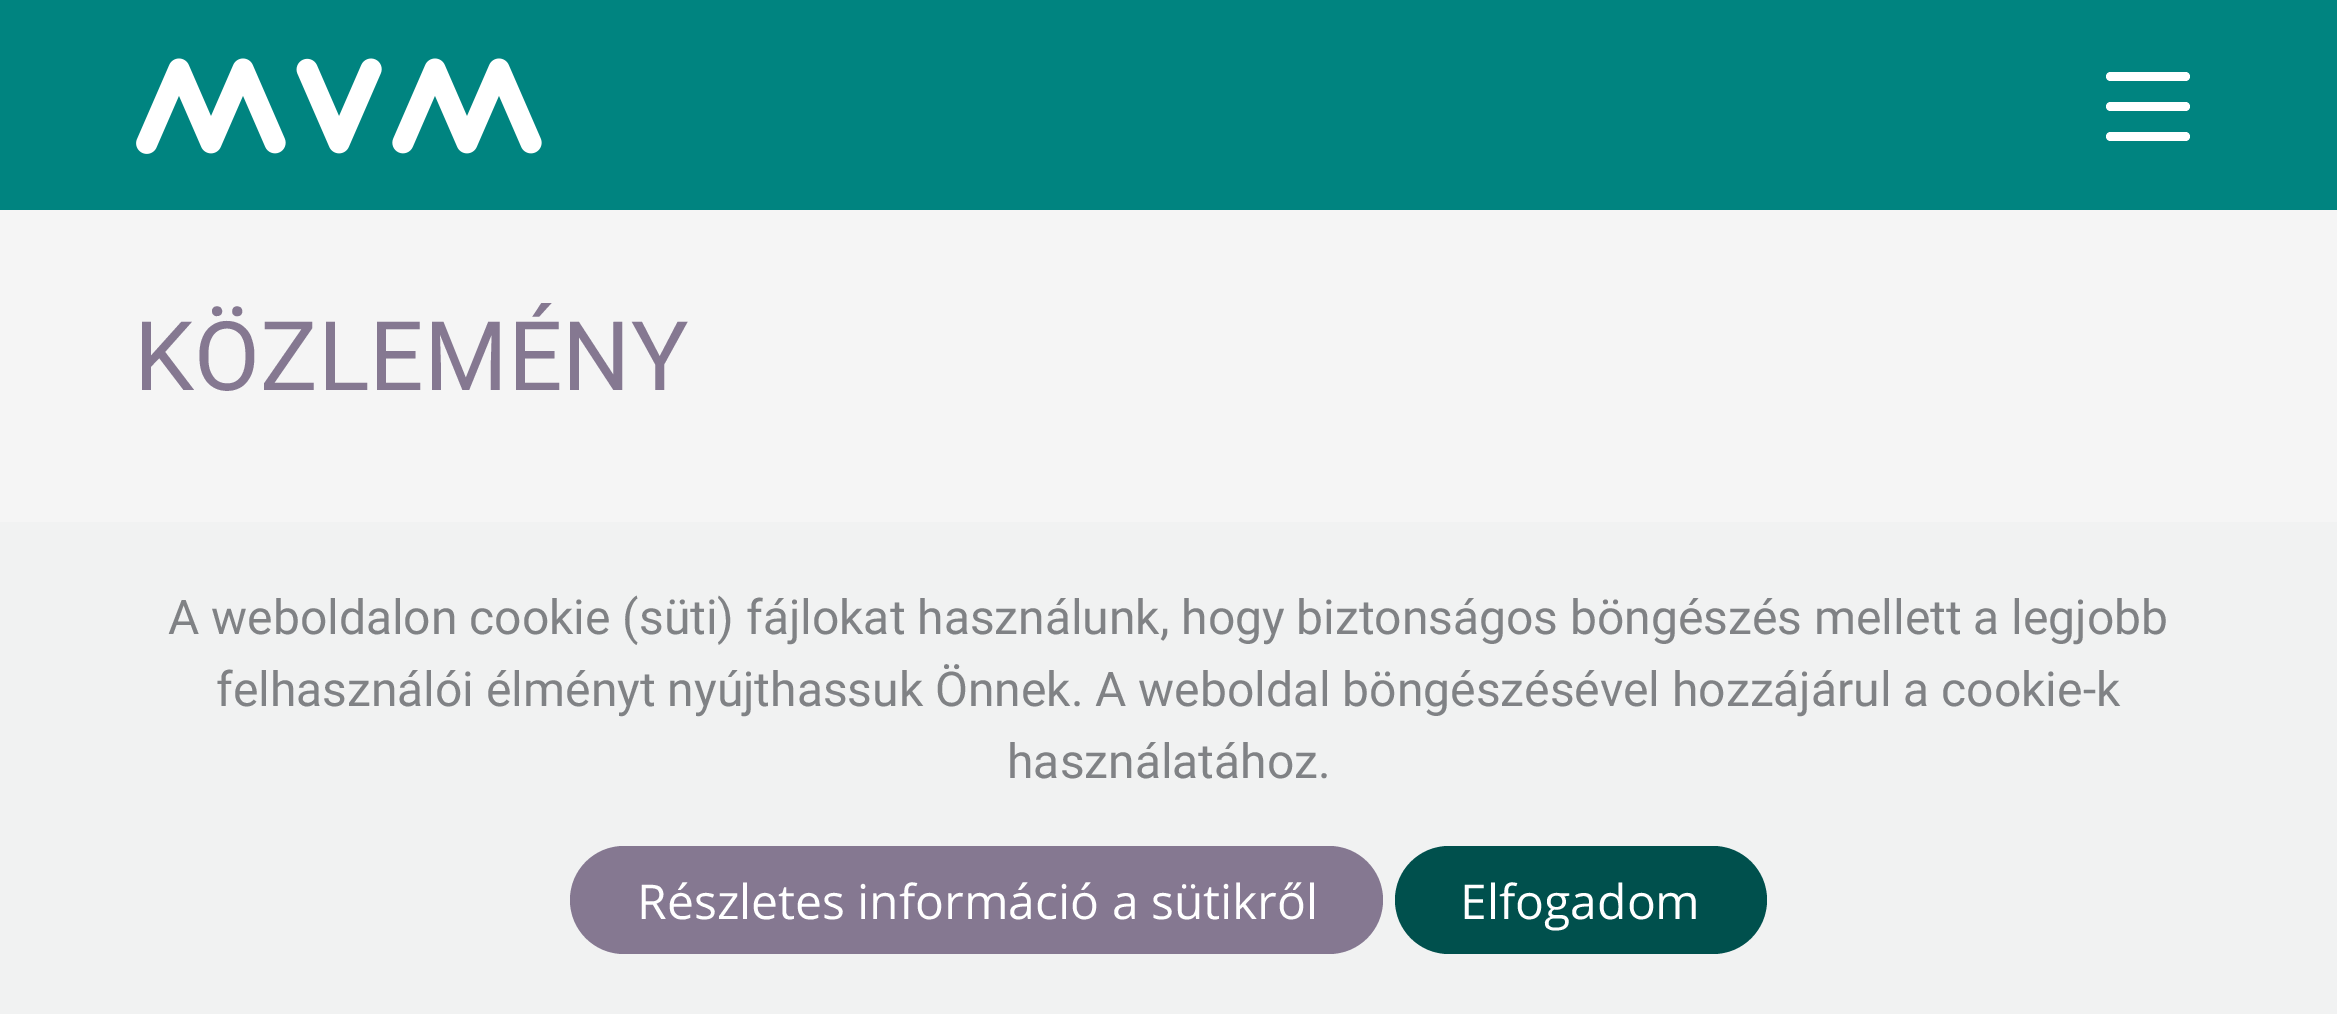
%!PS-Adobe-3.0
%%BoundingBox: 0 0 2337 1014
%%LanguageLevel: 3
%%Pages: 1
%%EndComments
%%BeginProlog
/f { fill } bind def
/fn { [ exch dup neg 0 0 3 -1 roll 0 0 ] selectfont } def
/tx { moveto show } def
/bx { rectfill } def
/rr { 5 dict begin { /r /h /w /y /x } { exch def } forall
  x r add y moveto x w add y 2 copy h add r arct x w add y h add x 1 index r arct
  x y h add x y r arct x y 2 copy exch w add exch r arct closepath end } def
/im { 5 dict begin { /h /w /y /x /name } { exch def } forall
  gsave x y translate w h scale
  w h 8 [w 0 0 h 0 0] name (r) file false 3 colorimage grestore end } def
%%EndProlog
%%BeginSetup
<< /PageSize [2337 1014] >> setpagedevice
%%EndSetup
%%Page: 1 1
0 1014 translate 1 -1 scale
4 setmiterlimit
0.961 setgray
0 0 2337 1014 bx
0 0.518 0.502 setrgbcolor
0 0 2337 210 bx
(image0.raw) 136 58 406 96 im
1 setgray
2106 102 84 9 4.5 rr f
2106 72 84 9 4.5 rr f
2106 132 84 9 4.5 rr f
/Roboto-Regular 96 fn
0.522 0.471 0.569 setrgbcolor
(KÖZLEMÉNY) 134 390 tx
0.945 0.949 0.949 setrgbcolor
0 522 2337 492 bx
/Roboto-Regular 48 fn
0.502 0.51 0.522 setrgbcolor
(A weboldalon cookie \(süti\) fájlokat használunk, hogy biztonságos böngészés mellett a legjobb) 168 634 tx
(felhasználói élményt nyújthassuk Önnek. A weboldal böngészésével hozzájárul a cookie-k) 216 706 tx
(használatához.) 1007 778 tx
0.522 0.471 0.569 setrgbcolor
570 846 813 108 54 rr f
/OpenSans-Regular 48 fn
1 setgray
(Részletes információ a sütikről) 637 919 tx
0 0.314 0.302 setrgbcolor
1395 846 372 108 54 rr f
1 setgray
(Elfogadom) 1460 919 tx
showpage
%%EOF
